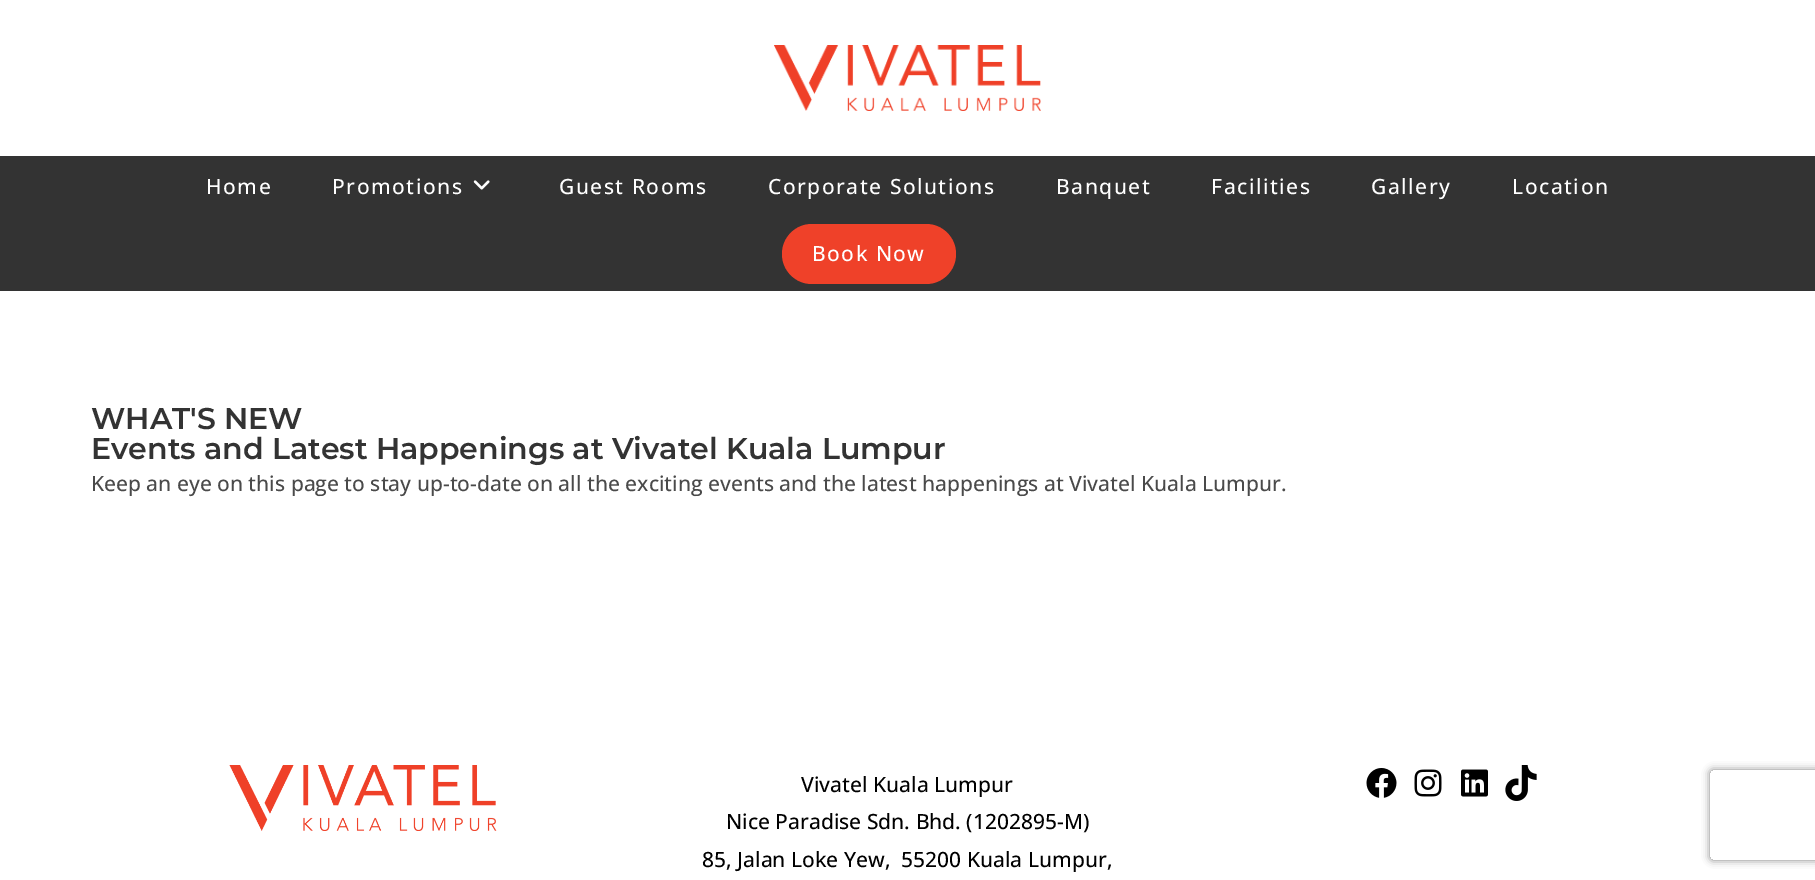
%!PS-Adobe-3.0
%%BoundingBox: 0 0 1815 880
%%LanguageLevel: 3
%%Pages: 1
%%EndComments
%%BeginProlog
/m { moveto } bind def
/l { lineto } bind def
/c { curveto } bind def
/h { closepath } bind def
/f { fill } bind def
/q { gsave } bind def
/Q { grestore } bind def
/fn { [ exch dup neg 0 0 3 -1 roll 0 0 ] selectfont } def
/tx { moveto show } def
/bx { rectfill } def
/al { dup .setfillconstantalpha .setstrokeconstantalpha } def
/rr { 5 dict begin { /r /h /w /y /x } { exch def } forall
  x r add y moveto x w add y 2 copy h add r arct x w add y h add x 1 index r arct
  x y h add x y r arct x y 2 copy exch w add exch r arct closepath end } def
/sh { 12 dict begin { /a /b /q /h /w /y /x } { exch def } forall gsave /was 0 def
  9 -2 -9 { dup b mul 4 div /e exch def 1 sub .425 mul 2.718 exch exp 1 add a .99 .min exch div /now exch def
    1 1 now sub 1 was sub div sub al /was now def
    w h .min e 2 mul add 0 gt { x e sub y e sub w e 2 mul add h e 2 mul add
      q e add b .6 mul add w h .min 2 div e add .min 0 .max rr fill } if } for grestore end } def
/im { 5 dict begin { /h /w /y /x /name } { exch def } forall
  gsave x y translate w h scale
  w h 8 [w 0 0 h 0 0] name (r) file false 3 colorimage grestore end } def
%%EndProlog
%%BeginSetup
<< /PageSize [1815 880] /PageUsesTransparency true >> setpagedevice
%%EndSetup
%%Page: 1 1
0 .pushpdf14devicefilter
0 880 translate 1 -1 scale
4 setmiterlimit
1 setgray
0 0 1815 880 bx
(image0.raw) 774 45 267 66 im
0.2 setgray
0 156 1815 135 bx
/OpenSans-Medium 21 fn
1 setgray
206 194 m 1.5 0 (Home) ashow
332 194 m 1.5 0 (Promotions) ashow
(image1.raw) 473 180 17 10 im
559 194 m 1.5 0 (Guest Rooms) ashow
768 194 m 1.5 0 (Corporate Solutions) ashow
1056 194 m 1.5 0 (Banquet) ashow
1211 194 m 1.5 0 (Facilities) ashow
1371 194 m 1.5 0 (Gallery) ashow
1512 194 m 1.5 0 (Location) ashow
0.937 0.255 0.161 setrgbcolor
782 224 174 60 30 rr f
1 setgray
812 261 m 1.5 0 (Book Now) ashow
/Montserrat-SemiBold 30 fn
0.2 setgray
(WHAT'S NEW) 91 429 tx
(Events and Latest Happenings at Vivatel Kuala Lumpur) 91 459 tx
/OpenSans-Medium 21 fn
0.29 setgray
(Keep an eye on this page to stay up-to-date on all the exciting events and the latest happenings at Vivatel Kuala Lumpur.) 91 491 tx
(image2.raw) 229 765 268 66 im
0 setgray
(Vivatel Kuala Lumpur) 801 792 tx
(Nice Paradise Sdn. Bhd. \(1202895-M\)) 726 829 tx
(85, Jalan Loke Yew,  55200 Kuala Lumpur,) 702 867 tx
(image3.raw) 1366 768 31 30 im
(image4.raw) 1414 769 28 28 im
(image5.raw) 1461 769 27 28 im
(image6.raw) 1505 765 32 36 im
q
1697 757 m 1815 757 l 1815 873 l 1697 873 l h 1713 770 m 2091 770 l 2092.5 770 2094 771.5 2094 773 c 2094 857 l 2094 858.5 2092.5 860 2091 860 c 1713 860 l 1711.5 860 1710 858.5 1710 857 c 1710 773 l 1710 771.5 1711.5 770 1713 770 c h eoclip newpath
0.502 setgray
1710 770 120 90 3 4 1 sh
Q
.poppdf14devicefilter showpage
%%EOF
